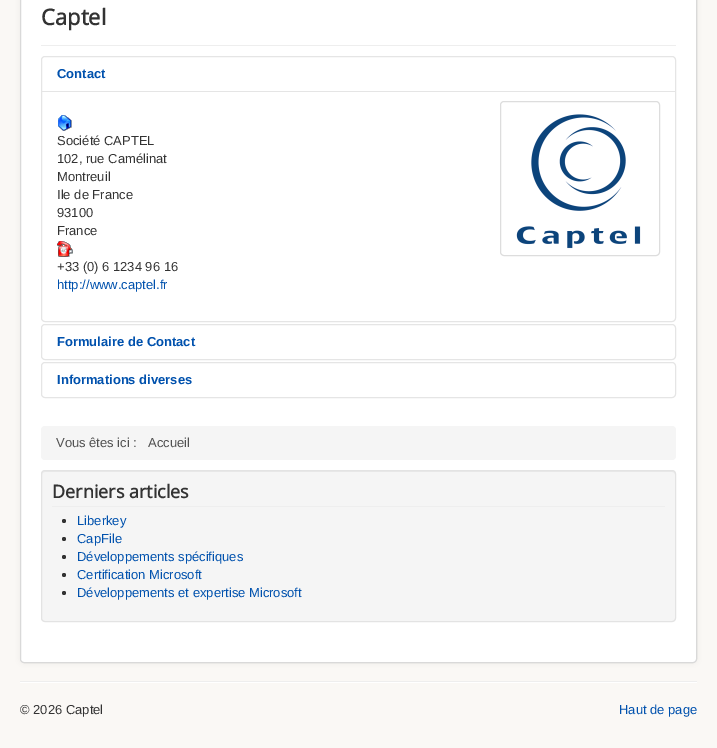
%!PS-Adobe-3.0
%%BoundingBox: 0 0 717 748
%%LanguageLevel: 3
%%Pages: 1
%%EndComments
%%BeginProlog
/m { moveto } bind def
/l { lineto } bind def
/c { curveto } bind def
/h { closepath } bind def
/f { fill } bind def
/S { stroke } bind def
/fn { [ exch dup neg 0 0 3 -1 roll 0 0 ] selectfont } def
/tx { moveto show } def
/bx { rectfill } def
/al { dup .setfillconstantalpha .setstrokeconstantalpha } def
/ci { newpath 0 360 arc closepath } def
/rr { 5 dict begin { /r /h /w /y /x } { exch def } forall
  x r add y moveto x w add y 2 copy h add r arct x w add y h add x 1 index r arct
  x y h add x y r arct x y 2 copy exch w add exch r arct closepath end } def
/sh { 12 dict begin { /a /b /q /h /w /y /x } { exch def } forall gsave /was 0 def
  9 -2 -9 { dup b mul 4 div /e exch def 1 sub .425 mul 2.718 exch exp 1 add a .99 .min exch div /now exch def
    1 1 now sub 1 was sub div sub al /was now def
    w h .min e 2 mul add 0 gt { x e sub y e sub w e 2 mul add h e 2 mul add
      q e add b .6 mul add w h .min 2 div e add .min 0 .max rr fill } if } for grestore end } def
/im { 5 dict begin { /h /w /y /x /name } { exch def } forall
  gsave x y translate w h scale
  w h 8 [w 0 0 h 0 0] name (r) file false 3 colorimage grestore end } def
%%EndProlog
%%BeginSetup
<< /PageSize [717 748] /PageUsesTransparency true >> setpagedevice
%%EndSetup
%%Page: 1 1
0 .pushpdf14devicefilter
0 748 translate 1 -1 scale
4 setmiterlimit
0.98 0.973 0.961 setrgbcolor
0 0 717 748 bx
0 setgray
20 -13 677 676 4 3 0.05 sh
1 setgray
20 -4 677 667 4 rr f
0.15 al
0 setgray
20.5 -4.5 676 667 3.5 rr S
1 al
0.933 setgray
41 45 635 1 bx
/OpenSans-Bold 22 fn
0.2 setgray
(Captel) 41 25 tx
0.898 setgray
41.5 56.5 634 265 3.5 rr S
/LiberationSans-Bold 13 fn
0 0.318 0.678 setrgbcolor
(Contact) 57 78 tx
0.898 setgray
42 91 633 1 bx
(image0.raw) 58 115 14 16 im
/LiberationSans-Regular 13 fn
0.2 setgray
(Société CAPTEL) 57 145 tx
(102, rue Camélinat) 57 163 tx
(Montreuil) 57 181 tx
(Ile de France) 57 199 tx
(93100) 57 217 tx
(France) 57 235 tx
(image1.raw) 57 241 16 16 im
(+33 \(0\) 6 1234 96 16) 57 271 tx
0 0.318 0.678 setrgbcolor
(http://www.captel.fr) 57 289 tx
0.867 setgray
500.5 101.5 159 154 3.5 rr S
(image2.raw) 516 114 125 135 im
0.898 setgray
41.5 324.5 634 35 3.5 rr S
/LiberationSans-Bold 13 fn
0 0.318 0.678 setrgbcolor
(Formulaire de Contact) 57 346 tx
0.898 setgray
41.5 362.5 634 35 3.5 rr S
0 0.318 0.678 setrgbcolor
(Informations diverses) 57 384 tx
0.961 setgray
41 426 635 34 4 rr f
/LiberationSans-Regular 13 fn
0.318 setgray
(Vous êtes ici :) 56 447 tx
(Accueil) 148 447 tx
0.961 setgray
41 470 635 152 4 rr f
0.914 setgray
45 472 m 672 472 l 674 472 675 473 675 475 c 675 474 l 675 472 674 471 672 471 c 45 471 l 43 471 42 472 42 474 c 42 475 l 42 473 43 472 45 472 c h f
0.89 setgray
41.5 470.5 634 151 3.5 rr S
0.933 setgray
52 506 613 1 bx
/OpenSans-Bold 18 fn
0.2 setgray
(Derniers articles) 52 498 tx
64 521 2 ci f
/LiberationSans-Regular 13 fn
0 0.318 0.678 setrgbcolor
(Liberkey) 77 525 tx
0.2 setgray
64 539 2 ci f
0 0.318 0.678 setrgbcolor
(CapFile) 77 543 tx
0.2 setgray
64 557 2 ci f
0 0.318 0.678 setrgbcolor
(Développements spécifiques) 77 561 tx
0.2 setgray
64 575 2 ci f
0 0.318 0.678 setrgbcolor
(Certification Microsoft) 77 579 tx
0.2 setgray
64 593 2 ci f
0 0.318 0.678 setrgbcolor
(Développements et expertise Microsoft) 77 597 tx
0.933 setgray
20 681 677 1 bx
1 setgray
20 682 677 1 bx
0.2 setgray
(© 2026 Captel) 20 714 tx
0 0.318 0.678 setrgbcolor
(Haut de page) 619 714 tx
.poppdf14devicefilter showpage
%%EOF
